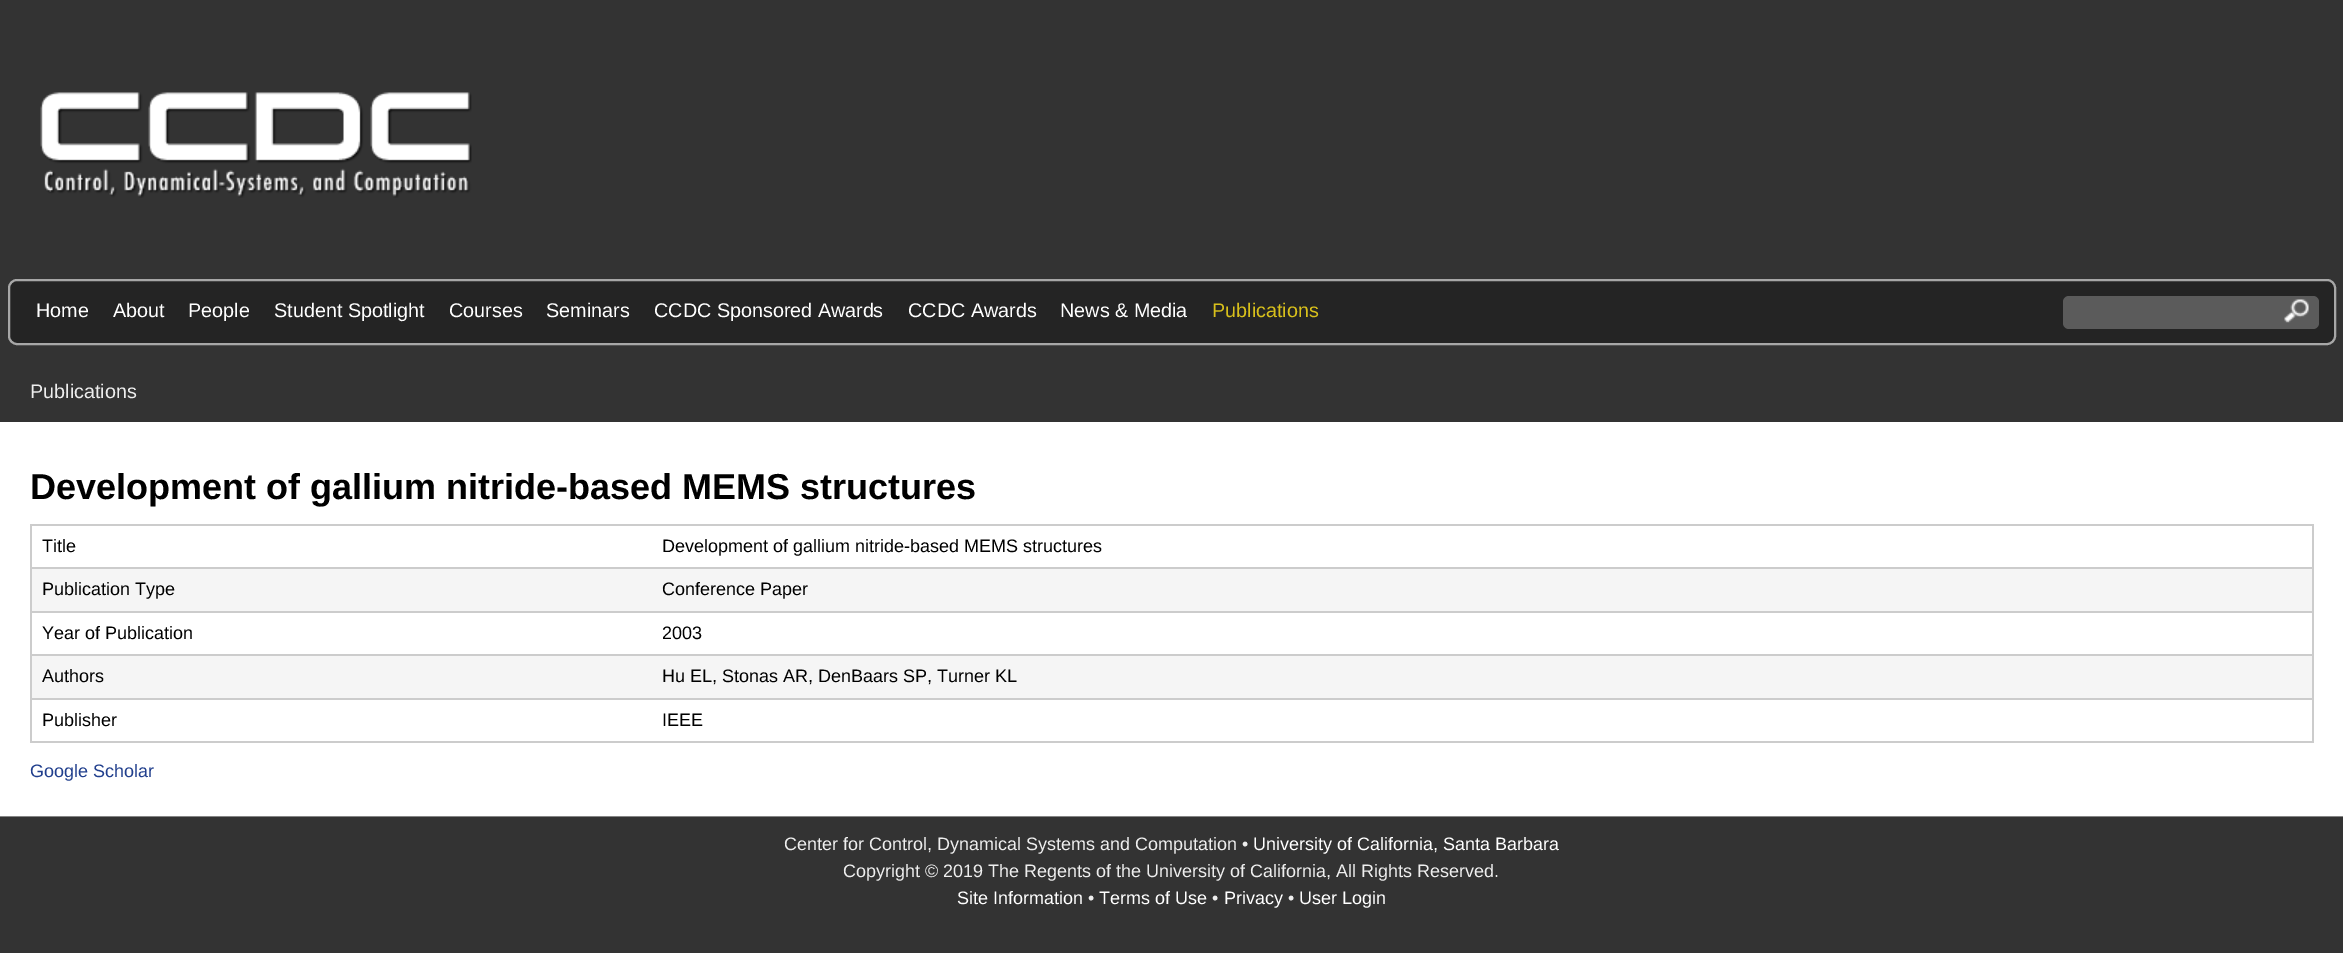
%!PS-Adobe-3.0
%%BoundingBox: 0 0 2343 953
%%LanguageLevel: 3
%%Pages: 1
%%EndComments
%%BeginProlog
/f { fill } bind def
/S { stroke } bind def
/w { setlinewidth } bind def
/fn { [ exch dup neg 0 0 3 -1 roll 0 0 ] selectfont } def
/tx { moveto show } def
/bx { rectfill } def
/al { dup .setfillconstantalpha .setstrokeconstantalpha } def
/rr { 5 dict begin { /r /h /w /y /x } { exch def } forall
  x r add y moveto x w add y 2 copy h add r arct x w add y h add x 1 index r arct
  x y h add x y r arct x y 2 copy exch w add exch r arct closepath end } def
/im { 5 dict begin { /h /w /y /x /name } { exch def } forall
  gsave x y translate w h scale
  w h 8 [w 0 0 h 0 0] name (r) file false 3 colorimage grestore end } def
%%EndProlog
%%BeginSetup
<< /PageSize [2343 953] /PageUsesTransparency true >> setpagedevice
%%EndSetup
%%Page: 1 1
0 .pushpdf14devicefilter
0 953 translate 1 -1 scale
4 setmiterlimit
0.2 setgray
0 0 2343 953 bx
0.522 setgray
0 816 2343 1 bx
(image0.raw) 40 92 432 106 im
0.141 setgray
8 279 2328 66 9 rr f
0.6 al
1 setgray
2 w
9 280 2326 64 8 rr S
/LiberationSans-Regular 19.75 fn
1 al
(Home) 36 317 tx
(About) 113 317 tx
(People) 188 317 tx
(Student Spotlight) 274 317 tx
(Courses) 449 317 tx
(Seminars) 546 317 tx
(CCDC Sponsored Awards) 654 317 tx
(CCDC Awards) 908 317 tx
(News & Media) 1060 317 tx
0.847 0.753 0.106 setrgbcolor
(Publications) 1212 317 tx
0.357 setgray
2063 296 256 33 6 rr f
(image1.raw) 2284 299 25 24 im
0.933 setgray
(Publications) 30 398 tx
1 setgray
0 422 2343 394 bx
/LiberationSans-Bold 36 fn
0 setgray
(Development of gallium nitride-based MEMS structures) 30 499 tx
0.8 setgray
30 524 2283 2 bx
2312 524 2 219 bx
30 741 2283 2 bx
30 524 2 219 bx
/LiberationSans-Regular 18 fn
0 setgray
(Title) 42 552 tx
(Development of gallium nitride-based MEMS structures) 662 552 tx
0.961 setgray
32 569 2280 42 bx
0.8 setgray
30 567 2283 2 bx
0 setgray
(Publication Type) 42 595 tx
(Conference Paper) 662 595 tx
0.8 setgray
30 611 2283 2 bx
0 setgray
(Year of Publication) 42 639 tx
(2003) 662 639 tx
0.961 setgray
32 656 2280 42 bx
0.8 setgray
30 654 2283 2 bx
0 setgray
(Authors) 42 682 tx
(Hu EL, Stonas AR, DenBaars SP, Turner KL) 662 682 tx
0.8 setgray
30 698 2283 2 bx
0 setgray
(Publisher) 42 726 tx
(IEEE) 662 726 tx
0.129 0.247 0.553 setrgbcolor
(Google Scholar) 30 777 tx
0.933 setgray
(Center for Control, Dynamical Systems and Computation •) 784 850 tx
1 setgray
(University of California, Santa Barbara) 1253 850 tx
0.933 setgray
(Copyright © 2019 The Regents of the University of California, All Rights Reserved.) 843 877 tx
1 setgray
(Site Information) 957 904 tx
0.933 setgray
(•) 1088 904 tx
1 setgray
(Terms of Use) 1099 904 tx
0.933 setgray
(•) 1212 904 tx
1 setgray
(Privacy) 1224 904 tx
0.933 setgray
(•) 1288 904 tx
1 setgray
(User Login) 1299 904 tx
.poppdf14devicefilter showpage
%%EOF
